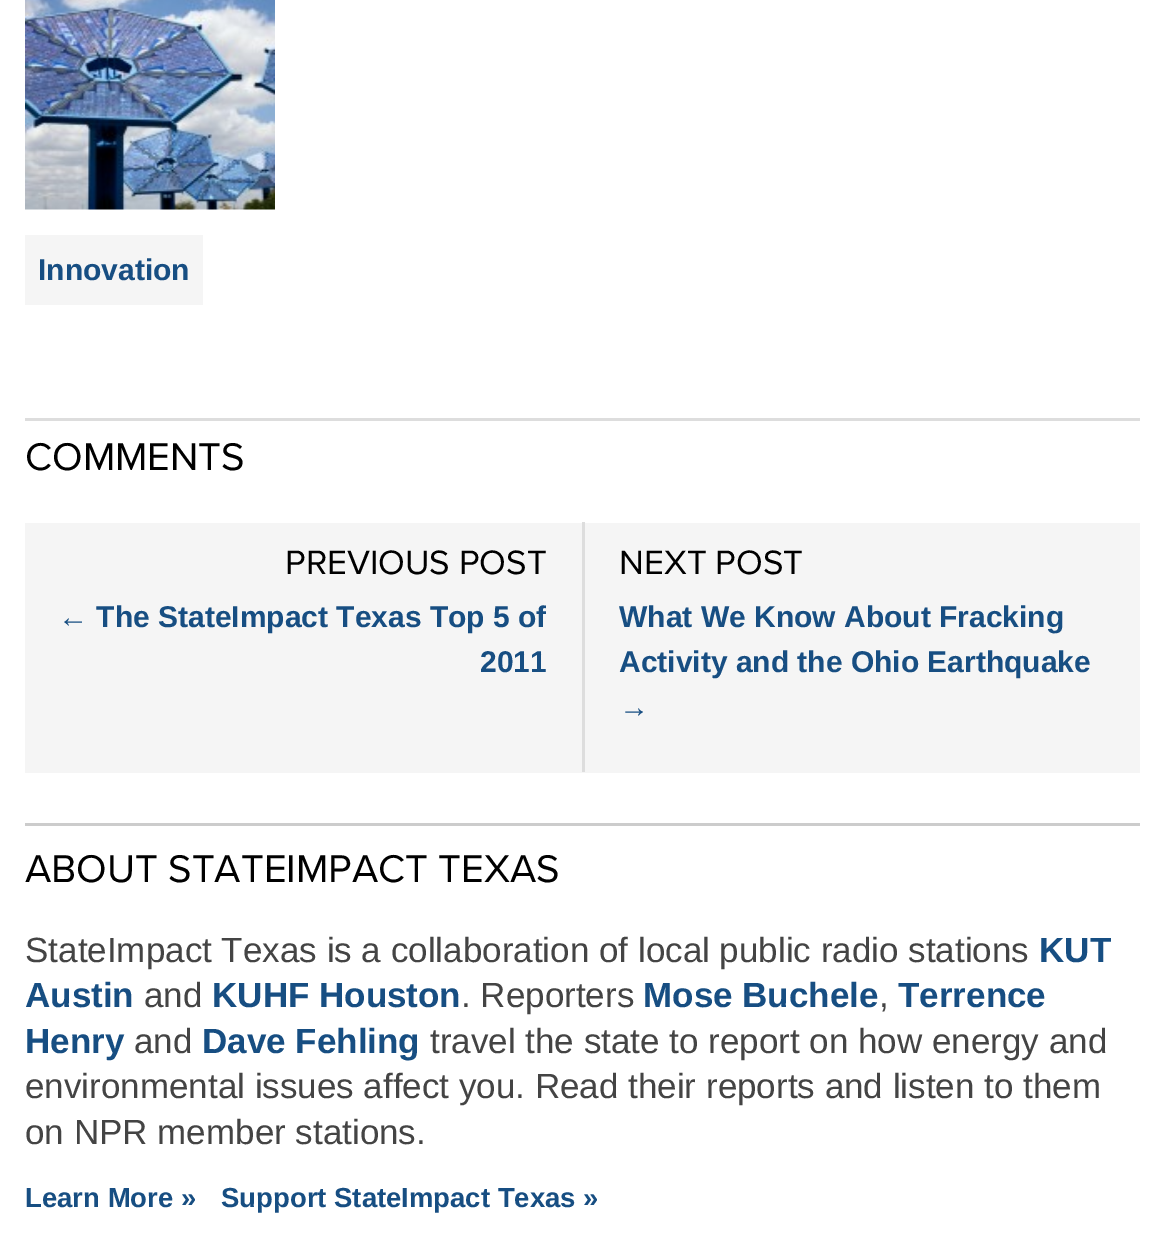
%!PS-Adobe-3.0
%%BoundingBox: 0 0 1164 1235
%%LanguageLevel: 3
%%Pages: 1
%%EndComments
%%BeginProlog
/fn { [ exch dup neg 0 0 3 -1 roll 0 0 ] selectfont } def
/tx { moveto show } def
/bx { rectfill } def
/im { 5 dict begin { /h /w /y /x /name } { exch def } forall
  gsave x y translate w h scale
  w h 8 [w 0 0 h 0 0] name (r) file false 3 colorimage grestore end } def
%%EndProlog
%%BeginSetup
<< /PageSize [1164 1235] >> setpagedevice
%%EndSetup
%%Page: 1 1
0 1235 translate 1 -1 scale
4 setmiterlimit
1 setgray
0 0 1164 1235 bx
(image0.raw) 25 0 250 210 im
0.961 setgray
25 235 178 70 bx
/LiberationSans-Bold 30 fn
0.09 0.306 0.51 setrgbcolor
(Innovation) 38 280 tx
0.867 setgray
25 418 1115 3 bx
/ProximaNova-Regular 40 fn
0 setgray
(COMMENTS) 25 470 tx
0.961 setgray
25 523 1115 250 bx
0.867 setgray
582 522 3 250 bx
/ProximaNova-Regular 35 fn
0 setgray
(PREVIOUS POST) 285 574 tx
/LiberationSans-Bold 30 fn
0.09 0.306 0.51 setrgbcolor
(← The StateImpact Texas Top 5 of) 58 627 tx
(2011) 480 672 tx
/ProximaNova-Regular 35 fn
0 setgray
(NEXT POST) 619 574 tx
/LiberationSans-Bold 30 fn
0.09 0.306 0.51 setrgbcolor
(What We Know About Fracking) 619 627 tx
(Activity and the Ohio Earthquake) 619 672 tx
(→) 619 717 tx
0.8 setgray
25 823 1115 3 bx
/ProximaNova-Regular 40 fn
0 setgray
(ABOUT STATEIMPACT TEXAS) 25 882 tx
/LiberationSans-Regular 35 fn
0.267 setgray
(StateImpact Texas is a collaboration of local public radio stations) 25 962 tx
/LiberationSans-Bold 35 fn
0.09 0.306 0.51 setrgbcolor
(KUT) 1039 962 tx
(Austin) 25 1007 tx
/LiberationSans-Regular 35 fn
0.267 setgray
(and) 144 1007 tx
/LiberationSans-Bold 35 fn
0.09 0.306 0.51 setrgbcolor
(KUHF Houston) 212 1007 tx
/LiberationSans-Regular 35 fn
0.267 setgray
(. Reporters) 461 1007 tx
/LiberationSans-Bold 35 fn
0.09 0.306 0.51 setrgbcolor
(Mose Buchele) 643 1007 tx
/LiberationSans-Regular 35 fn
0.267 setgray
(,) 879 1007 tx
/LiberationSans-Bold 35 fn
0.09 0.306 0.51 setrgbcolor
(Terrence) 898 1007 tx
(Henry) 25 1053 tx
/LiberationSans-Regular 35 fn
0.267 setgray
(and) 134 1053 tx
/LiberationSans-Bold 35 fn
0.09 0.306 0.51 setrgbcolor
(Dave Fehling) 202 1053 tx
/LiberationSans-Regular 35 fn
0.267 setgray
(travel the state to report on how energy and) 430 1053 tx
(environmental issues affect you. Read their reports and listen to them) 25 1098 tx
(on NPR member stations.) 25 1144 tx
/LiberationSans-Bold 27.5 fn
0.09 0.306 0.51 setrgbcolor
(Learn More ») 25 1207 tx
(Support StateImpact Texas ») 221 1207 tx
showpage
%%EOF
